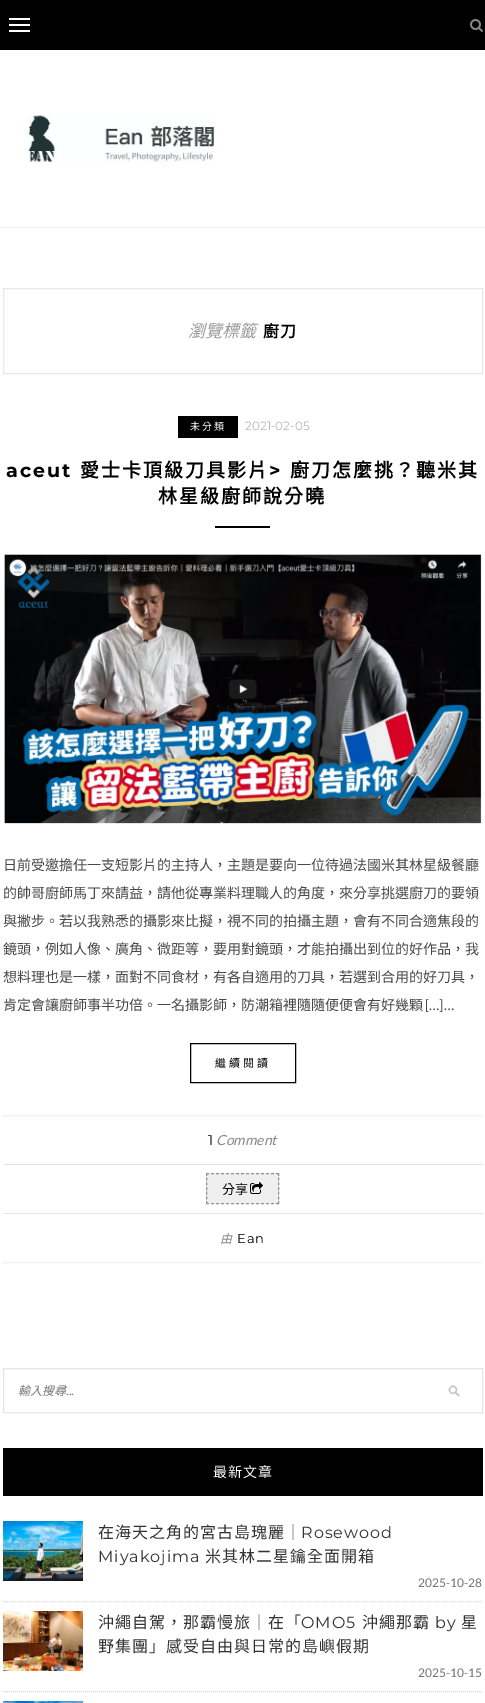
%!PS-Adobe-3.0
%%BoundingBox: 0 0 485 1703
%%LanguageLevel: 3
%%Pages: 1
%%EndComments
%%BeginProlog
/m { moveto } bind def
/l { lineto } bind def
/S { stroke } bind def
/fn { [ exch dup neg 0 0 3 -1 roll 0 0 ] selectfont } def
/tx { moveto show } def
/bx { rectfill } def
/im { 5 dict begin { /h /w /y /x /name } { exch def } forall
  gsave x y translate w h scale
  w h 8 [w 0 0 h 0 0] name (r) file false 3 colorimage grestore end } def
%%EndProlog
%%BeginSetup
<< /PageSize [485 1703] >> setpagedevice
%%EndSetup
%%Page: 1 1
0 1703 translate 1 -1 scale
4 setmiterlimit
1 setgray
0 0 485 1703 bx
0 setgray
0 0 485 50 bx
1 setgray
9 18 21 2 bx
9 24 21 2 bx
9 30 21 2 bx
(image0.raw) 470 19 13 13 im
0.933 setgray
0 227 485 1 bx
(image1.raw) 26 114 188 49 im
0.91 setgray
3.5 288.5 479 85 rectstroke
/NotoSansCJKTC-Italic 17 fn
0.6 setgray
(瀏覽標籤) 188 337 tx
/NotoSansCJKTC-Bold 16 fn
0 setgray
263 337 m 1 0 (廚刀) ashow
178 416 60 22 bx
/NotoSansCJKTC-Regular 10 fn
1 setgray
190 430 m 2 0 (未分類) ashow
/Montserrat-Regular 12 fn
0.718 setgray
(2021-02-05) 245 430 tx
/Montserrat-Bold 19 fn
0 setgray
6 477 m 2 0 (aceut) ashow
/NotoSansCJKTC-Bold 19 fn
80 477 m 2 0 (愛士卡頂級刀具影片) ashow
/Montserrat-Bold 19 fn
269 477 m 2 0 (>) ashow
/NotoSansCJKTC-Bold 19 fn
290 477 m 2 0 (廚刀怎麼挑？聽米其) ashow
158 503 m 2 0 (林星級廚師說分曉) ashow
215 526 55 2 bx
(image2.raw) 4 554 478 270 im
/NotoSansCJKTC-Regular 14 fn
0.282 setgray
(日前受邀擔任一支短影片的主持人，主題是要向一位待過法國米其林星級餐廳) 3 870 tx
(的帥哥廚師馬丁來請益，請他從專業料理職人的角度，來分享挑選廚刀的要領) 3 898 tx
(與撇步。若以我熟悉的攝影來比擬，視不同的拍攝主題，會有不同合適焦段的) 3 926 tx
(鏡頭，例如人像、廣角、微距等，要用對鏡頭，才能拍攝出到位的好作品，我) 3 954 tx
(想料理也是一樣，面對不同食材，有各自適用的刀具，若選到合用的好刀具，) 3 982 tx
(肯定會讓廚師事半功倍。一名攝影師，防潮箱裡隨隨便便會有好幾顆) 3 1010 tx
/Lato-Regular 14 fn
([…]…) 425 1010 tx
0 setgray
190.5 1043.5 105 39 rectstroke
/NotoSansCJKTC-Regular 11 fn
215 1067 m 3 0 (繼續閱讀) ashow
0.898 setgray
[1 1] 0 setdash
3 1115.5 m 483 1115.5 l S
3 1262.5 m 483 1262.5 l S
3 1164 480 1 bx
/Montserrat-Regular 14 fn
0 setgray
(1) 208 1145 tx
/Lato-Italic 14 fn
0.533 setgray
(Comment) 216 1145 tx
0.898 setgray
3 1213 480 1 bx
0.937 setgray
206 1173 73 31 bx
0.565 setgray
[3 2] 0 setdash
206 1173.5 m 279 1173.5 l S
[3 1.67] 0 setdash
278.5 1173 m 278.5 1204 l S
[3 2] 0 setdash
206 1203.5 m 279 1203.5 l S
[3 1.67] 0 setdash
206.5 1173 m 206.5 1204 l S
/NotoSansCJKTC-Regular 13 fn
0 setgray
(分享) 222 1194 tx
(image3.raw) 250 1182 13 12 im
/NotoSansCJKTC-Italic 12 fn
0.533 setgray
(由) 220 1243 tx
/Montserrat-Regular 13 fn
0 setgray
237 1243 m 1 0 (Ean) ashow
(image4.raw) 448 1385 12 12 im
0.898 setgray
[] 0 setdash
3.5 1368.5 479 44 rectstroke
/NotoSansCJKTC-Italic 12 fn
0.459 setgray
(輸入搜尋) 18 1395 tx
/Lato-Italic 12 fn
(...) 66 1395 tx
0 setgray
3 1448 480 48 bx
/NotoSansCJKTC-Regular 14 fn
1 setgray
213 1477 m 1 0 (最新文章) ashow
0.835 setgray
[1 1] 0 setdash
3 1601.5 m 483 1601.5 l S
(image5.raw) 3 1521 80 60 im
/NotoSansCJKTC-Regular 16 fn
0.2 setgray
98 1538 m 1 0 (在海天之角的宮古島瑰麗｜) ashow
/Montserrat-Regular 16 fn
301 1538 m 1 0 (Rosewood) ashow
98 1562 m 1 0 (Miyakojima) ashow
/NotoSansCJKTC-Regular 16 fn
205 1562 m 1 0 (米其林二星鑰全面開箱) ashow
/Lato-Regular 12 fn
0.459 setgray
(2025-10-28) 418 1587 tx
0.835 setgray
3 1691.5 m 483 1691.5 l S
(image6.raw) 3 1611 80 60 im
/NotoSansCJKTC-Regular 16 fn
0.2 setgray
98 1628 m 1 0 (沖繩自駕，那霸慢旅｜在「) ashow
/Montserrat-Regular 16 fn
301 1628 m 1 0 (OMO5) ashow
/NotoSansCJKTC-Regular 16 fn
362 1628 m 1 0 (沖繩那霸) ashow
/Montserrat-Regular 16 fn
435 1628 m 1 0 (by) ashow
/NotoSansCJKTC-Regular 16 fn
461 1628 m 1 0 (星) ashow
98 1652 m 1 0 (野集團」感受自由與日常的島嶼假期) ashow
/Lato-Regular 12 fn
0.459 setgray
(2025-10-15) 418 1677 tx
(image7.raw) 3 1701 80 2 im
showpage
%%EOF
